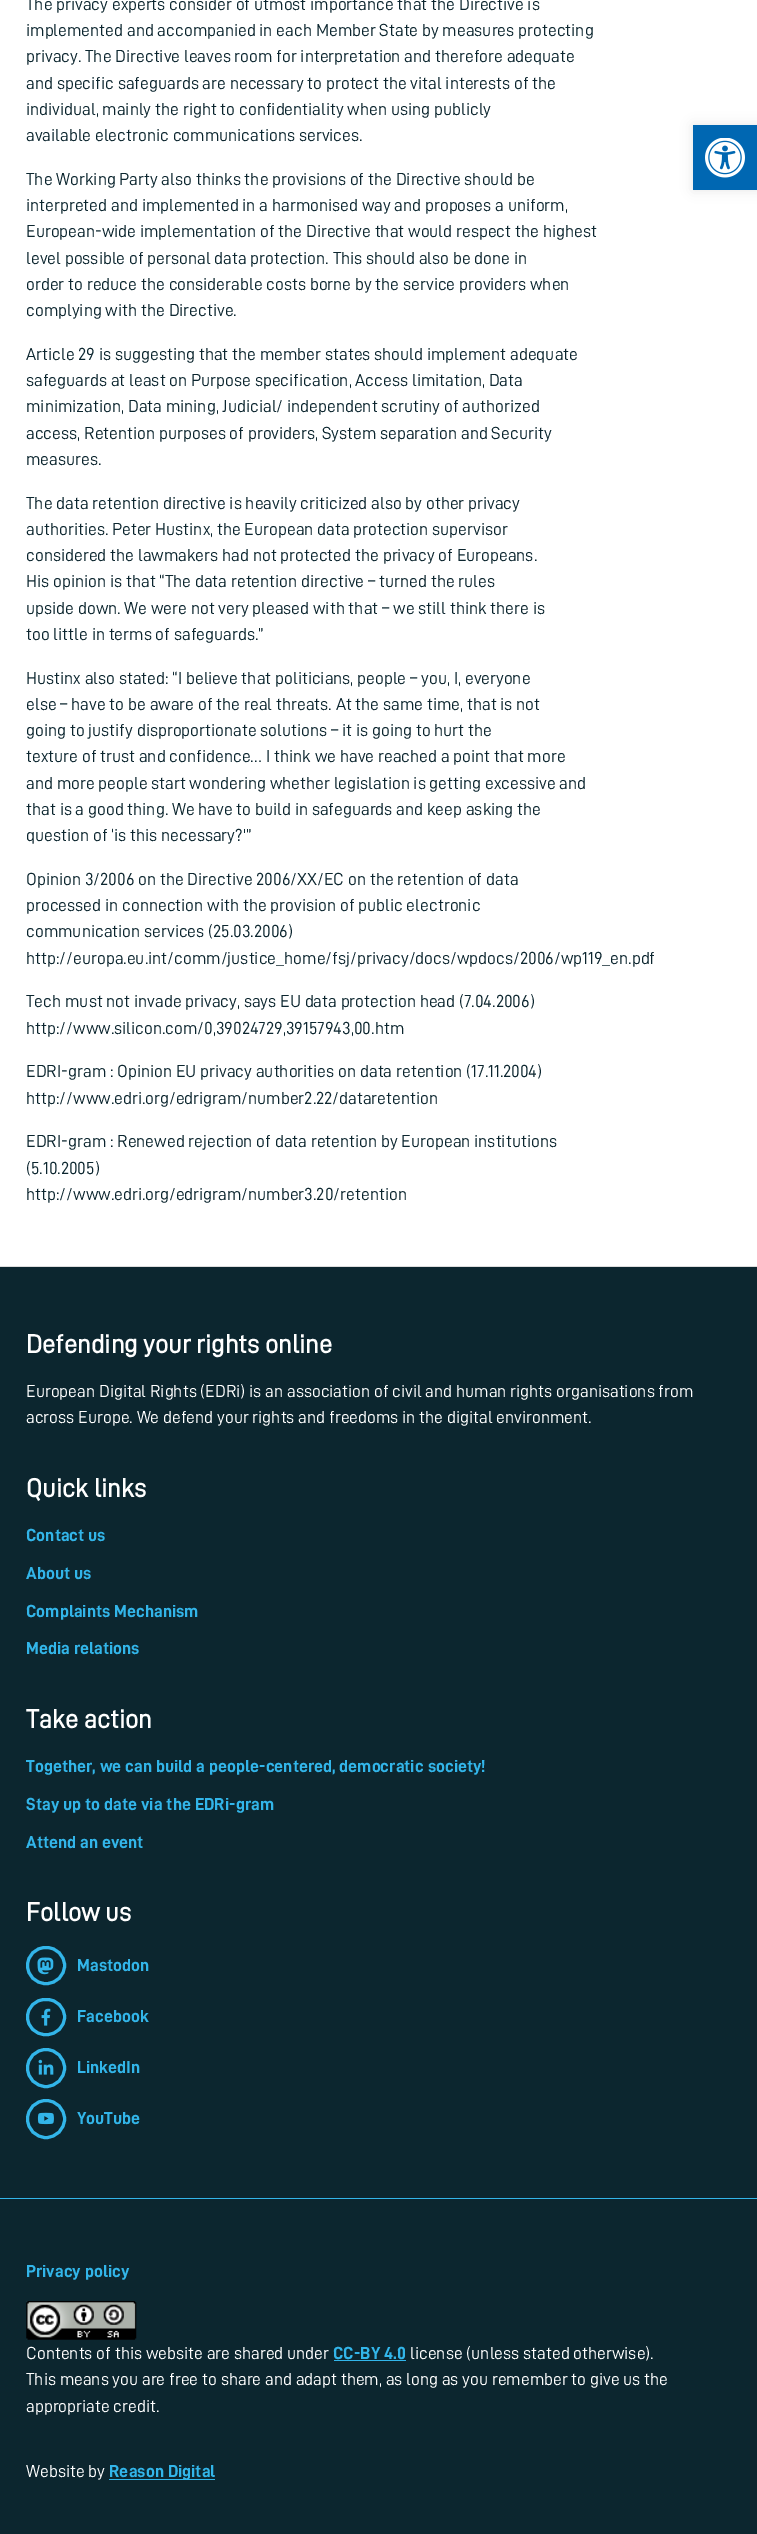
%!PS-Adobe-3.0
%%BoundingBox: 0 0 757 2534
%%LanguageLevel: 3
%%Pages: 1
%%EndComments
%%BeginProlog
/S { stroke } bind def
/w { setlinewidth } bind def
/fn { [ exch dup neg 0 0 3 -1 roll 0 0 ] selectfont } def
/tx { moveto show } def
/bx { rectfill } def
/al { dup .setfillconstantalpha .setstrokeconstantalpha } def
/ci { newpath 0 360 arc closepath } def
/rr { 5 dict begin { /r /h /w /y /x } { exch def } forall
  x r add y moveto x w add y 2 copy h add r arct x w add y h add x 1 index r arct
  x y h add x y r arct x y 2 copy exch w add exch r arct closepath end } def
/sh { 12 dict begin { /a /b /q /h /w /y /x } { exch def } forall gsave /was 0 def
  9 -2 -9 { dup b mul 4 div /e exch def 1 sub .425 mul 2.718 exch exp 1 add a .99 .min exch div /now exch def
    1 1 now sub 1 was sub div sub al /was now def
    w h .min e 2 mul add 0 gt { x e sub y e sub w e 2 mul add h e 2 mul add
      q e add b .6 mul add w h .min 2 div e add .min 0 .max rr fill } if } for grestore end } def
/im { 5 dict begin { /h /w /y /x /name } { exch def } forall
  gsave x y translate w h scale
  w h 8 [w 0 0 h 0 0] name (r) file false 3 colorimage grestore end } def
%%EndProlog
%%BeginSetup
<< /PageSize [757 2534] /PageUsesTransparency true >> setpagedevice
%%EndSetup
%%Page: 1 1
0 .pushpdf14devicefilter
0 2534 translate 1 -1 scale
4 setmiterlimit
1 setgray
0 0 757 2534 bx
/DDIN-Regular 17.5 fn
0.047 0.149 0.184 setrgbcolor
(The privacy experts consider of utmost importance that the Directive is) 26 10 tx
(implemented and accompanied in each Member State by measures protecting) 26 36 tx
(privacy. The Directive leaves room for interpretation and therefore adequate) 26 62 tx
(and specific safeguards are necessary to protect the vital interests of the) 26 89 tx
(individual, mainly the right to confidentiality when using publicly) 26 115 tx
(available electronic communications services.) 26 141 tx
(The Working Party also thinks the provisions of the Directive should be) 26 185 tx
(interpreted and implemented in a harmonised way and proposes a uniform,) 26 211 tx
(European-wide implementation of the Directive that would respect the highest) 26 237 tx
(level possible of personal data protection. This should also be done in) 26 264 tx
(order to reduce the considerable costs borne by the service providers when) 26 290 tx
(complying with the Directive.) 26 316 tx
(Article 29 is suggesting that the member states should implement adequate) 26 360 tx
(safeguards at least on Purpose specification, Access limitation, Data) 26 386 tx
(minimization, Data mining, Judicial/ independent scrutiny of authorized) 26 412 tx
(access, Retention purposes of providers, System separation and Security) 26 439 tx
(measures.) 26 465 tx
(The data retention directive is heavily criticized also by other privacy) 26 509 tx
(authorities. Peter Hustinx, the European data protection supervisor) 26 535 tx
(considered the lawmakers had not protected the privacy of Europeans.) 26 561 tx
(His opinion is that “The data retention directive – turned the rules) 26 587 tx
(upside down. We were not very pleased with that – we still think there is) 26 614 tx
(too little in terms of safeguards.”) 26 640 tx
(Hustinx also stated: “I believe that politicians, people – you, I, everyone) 26 684 tx
(else – have to be aware of the real threats. At the same time, that is not) 26 710 tx
(going to justify disproportionate solutions – it is going to hurt the) 26 736 tx
(texture of trust and confidence… I think we have reached a point that more) 26 762 tx
(and more people start wondering whether legislation is getting excessive and) 26 789 tx
(that is a good thing. We have to build in safeguards and keep asking the) 26 815 tx
(question of ‘is this necessary?'”) 26 841 tx
(Opinion 3/2006 on the Directive 2006/XX/EC on the retention of data) 26 885 tx
(processed in connection with the provision of public electronic) 26 911 tx
(communication services \(25.03.2006\)) 26 937 tx
(http://europa.eu.int/comm/justice_home/fsj/privacy/docs/wpdocs/2006/wp119_en.pdf) 26 964 tx
(Tech must not invade privacy, says EU data protection head \(7.04.2006\)) 26 1007 tx
(http://www.silicon.com/0,39024729,39157943,00.htm) 26 1034 tx
(EDRI-gram : Opinion EU privacy authorities on data retention \(17.11.2004\)) 26 1077 tx
(http://www.edri.org/edrigram/number2.22/dataretention) 26 1104 tx
(EDRI-gram : Renewed rejection of data retention by European institutions) 26 1147 tx
(\(5.10.2005\)) 26 1174 tx
(http://www.edri.org/edrigram/number3.20/retention) 26 1200 tx
0 1267 757 931 bx
0.867 setgray
0 1266 757 1 bx
/DDIN-Bold 26.25 fn
1 setgray
(Defending your rights online) 26 1353 tx
/DDIN-Regular 17.5 fn
(European Digital Rights \(EDRi\) is an association of civil and human rights organisations from) 26 1397 tx
(across Europe. We defend your rights and freedoms in the digital environment.) 26 1423 tx
/DDIN-Bold 26.25 fn
(Quick links) 26 1497 tx
/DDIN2-Bold 17.5 fn
0.196 0.71 0.914 setrgbcolor
(Contact us) 26 1541 tx
(About us) 26 1579 tx
(Complaints Mechanism) 26 1617 tx
(Media relations) 26 1654 tx
/DDIN-Bold 26.25 fn
1 setgray
(Take action) 26 1728 tx
/DDIN2-Bold 17.5 fn
0.196 0.71 0.914 setrgbcolor
(Together, we can build a people-centered, democratic society!) 26 1772 tx
(Stay up to date via the EDRi-gram) 26 1810 tx
(Attend an event) 26 1848 tx
/DDIN-Bold 26.25 fn
1 setgray
(Follow us) 26 1921 tx
0.196 0.71 0.914 setrgbcolor
3 w
27.5 1947.5 37 36 18 rr S
(image0.raw) 37 1957 17 18 im
/DDIN2-Bold 17.5 fn
(Mastodon) 77 1971 tx
27.5 1999.5 37 35 17.5 rr S
(image1.raw) 41 2008 10 18 im
(Facebook) 77 2022 tx
46 2068 18.5 ci S
(image2.raw) 38 2059 16 16 im
(LinkedIn) 77 2073 tx
46 2119 18.5 ci S
(image3.raw) 37 2112 17 13 im
(YouTube) 77 2124 tx
0.047 0.149 0.184 setrgbcolor
0 2199 757 335 bx
0.196 0.71 0.914 setrgbcolor
0 2198 757 1 bx
(Privacy policy) 26 2277 tx
(image4.raw) 26 2301 111 39 im
/DDIN-Regular 17.5 fn
1 setgray
(Contents of this website are shared under) 26 2359 tx
/DDIN2-Bold 17.5 fn
0.196 0.71 0.914 setrgbcolor
(CC-BY 4.0) 333 2359 tx
334 2360 72 1 bx
/DDIN-Regular 17.5 fn
1 setgray
(license \(unless stated otherwise\).) 410 2359 tx
(This means you are free to share and adapt them, as long as you remember to give us the) 26 2385 tx
(appropriate credit.) 26 2412 tx
(Website by) 26 2477 tx
0.196 0.71 0.914 setrgbcolor
109 2479 106 1 bx
/DDIN2-Bold 17.5 fn
(Reason Digital) 109 2477 tx
0 setgray
693 125 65 65 0 6 0.1 sh
0 0.404 0.698 setrgbcolor
693 125 64 65 bx
(image5.raw) 705 138 40 40 im
.poppdf14devicefilter showpage
%%EOF
